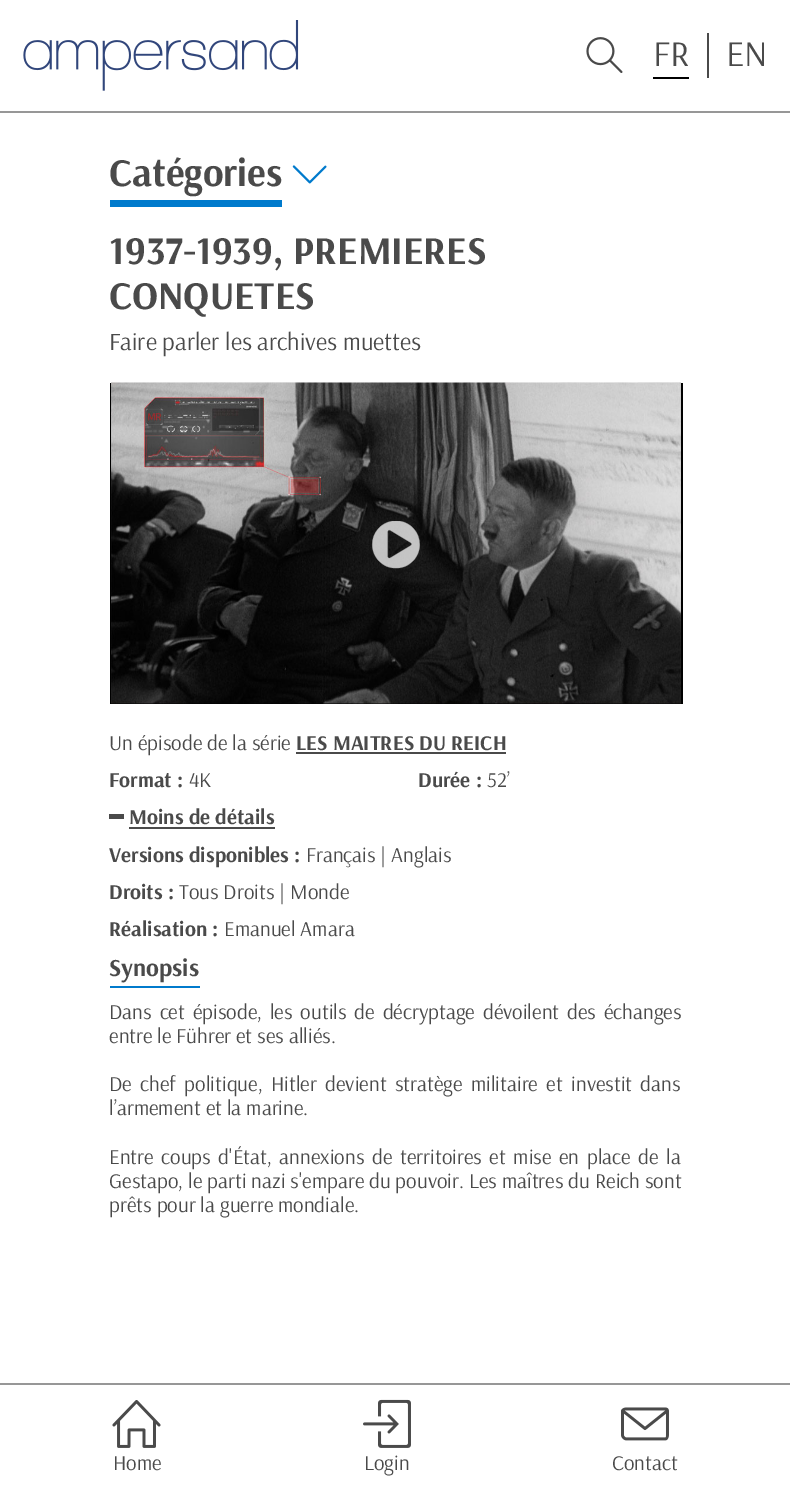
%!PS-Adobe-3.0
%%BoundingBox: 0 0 790 1488
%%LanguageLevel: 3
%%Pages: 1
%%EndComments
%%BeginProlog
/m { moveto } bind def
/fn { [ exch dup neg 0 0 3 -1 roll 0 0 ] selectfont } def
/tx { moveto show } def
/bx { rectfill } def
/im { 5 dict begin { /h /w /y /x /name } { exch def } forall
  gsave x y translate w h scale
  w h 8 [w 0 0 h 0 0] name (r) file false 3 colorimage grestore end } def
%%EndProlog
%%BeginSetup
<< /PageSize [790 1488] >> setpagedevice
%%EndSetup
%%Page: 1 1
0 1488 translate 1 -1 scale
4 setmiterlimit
1 setgray
0 0 790 1488 bx
0.592 setgray
0 111 790 2 bx
(image0.raw) 23 20 276 71 im
(image1.raw) 586 37 37 36 im
0 setgray
653 77 36 2 bx
/Arsenal-Regular 36 fn
0.29 setgray
(FR) 653 66 tx
707 33 2 45 bx
(EN) 726 66 tx
0 0.478 0.8 setrgbcolor
110 200 172 7 bx
/Arsenal-Bold 39.4 fn
0.29 setgray
(Catégories) 109 186 tx
(image2.raw) 292 165 35 19 im
(1937-1939, PREMIERES) 109 264 tx
(CONQUETES) 109 309 tx
/Arsenal-Regular 24.5 fn
(Faire parler les archives muettes) 109 350 tx
0 setgray
110 383 573 321 bx
(image3.raw) 111 382 570 322 im
(image4.raw) 372 521 48 48 im
/Arsenal-Regular 21 fn
0.29 setgray
(Un épisode de la série) 109 750 tx
/Arsenal-Bold 21 fn
(LES MAITRES DU REICH) 296 750 tx
296 752 210 2 bx
(Format :) 109 787 tx
/Arsenal-Regular 21 fn
(4K) 189 787 tx
/Arsenal-Bold 21 fn
(Durée :) 418 787 tx
/Arsenal-Regular 21 fn
(52’) 487 787 tx
109 814 15 5 bx
/Arsenal-Bold 21 fn
(Moins de détails) 129 824 tx
129 827 146 2 bx
(Versions disponibles :) 109 862 tx
/Arsenal-Regular 21 fn
(Français | Anglais) 306 862 tx
/Arsenal-Bold 21 fn
(Droits :) 109 899 tx
/Arsenal-Regular 21 fn
(Tous Droits | Monde) 179 899 tx
/Arsenal-Bold 21 fn
(Réalisation :) 109 936 tx
/Arsenal-Regular 21 fn
(Emanuel Amara) 224 936 tx
0 0.478 0.8 setrgbcolor
110 986 90 2 bx
/Arsenal-Bold 24.5 fn
0.29 setgray
(Synopsis) 109 976 tx
/Arsenal-Regular 21 fn
109 1019 m 3 0 32 (Dans cet épisode, les outils de décryptage dévoilent des échanges) widthshow
(entre le Führer et ses alliés.) 109 1043 tx
109 1091 m 3.5 0 32 (De chef politique, Hitler devient stratège militaire et investit dans) widthshow
(l’armement et la marine.) 109 1115 tx
109 1164 m 2.75 0 32 (Entre coups d'État, annexions de territoires et mise en place de la) widthshow
(Gestapo, le parti nazi s'empare du pouvoir. Les maîtres du Reich sont) 109 1188 tx
(prêts pour la guerre mondiale.) 109 1212 tx
0.592 setgray
0 1383 790 2 bx
(image5.raw) 112 1400 49 48 im
0.29 setgray
(Home) 113 1470 tx
(image6.raw) 363 1399 48 49 im
(Login) 364 1470 tx
(image7.raw) 621 1407 48 34 im
(Contact) 612 1470 tx
showpage
%%EOF
